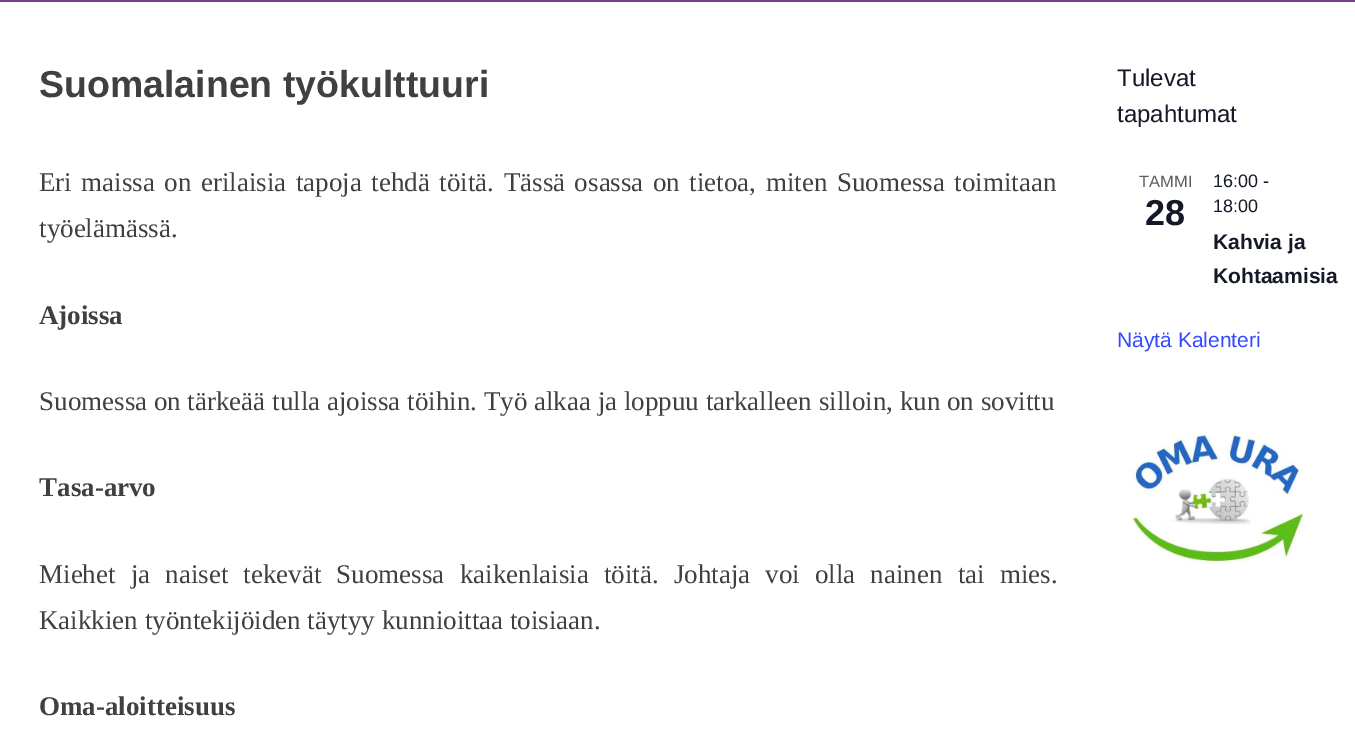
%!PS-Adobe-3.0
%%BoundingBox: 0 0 1355 754
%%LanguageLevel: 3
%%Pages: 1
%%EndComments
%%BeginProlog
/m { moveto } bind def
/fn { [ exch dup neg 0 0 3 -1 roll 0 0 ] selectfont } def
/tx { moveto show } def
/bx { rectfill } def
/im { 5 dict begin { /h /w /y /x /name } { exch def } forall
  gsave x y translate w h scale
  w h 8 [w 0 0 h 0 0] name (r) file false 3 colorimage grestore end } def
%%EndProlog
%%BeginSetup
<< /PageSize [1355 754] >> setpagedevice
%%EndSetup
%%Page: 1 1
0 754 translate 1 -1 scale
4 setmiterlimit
1 setgray
0 0 1355 754 bx
0.463 0.255 0.545 setrgbcolor
0 0 1355 2 bx
/LiberationSans-Bold 37.5 fn
0.251 setgray
(Suomalainen työkulttuuri) 39 97 tx
/LiberationSerif-Regular 27 fn
39 191 m 2.75 0 32 (Eri maissa on erilaisia tapoja tehdä töitä. Tässä osassa on tietoa, miten Suomessa toimitaan) widthshow
(työelämässä.) 39 237 tx
/LiberationSerif-Bold 27 fn
(Ajoissa) 39 324 tx
/LiberationSerif-Regular 27 fn
(Suomessa on tärkeää tulla ajoissa töihin. Työ alkaa ja loppuu tarkalleen silloin, kun on sovittu) 39 410 tx
/LiberationSerif-Bold 27 fn
(Tasa-arvo) 39 496 tx
/LiberationSerif-Regular 27 fn
39 583 m 8.4 0 32 (Miehet ja naiset tekevät Suomessa kaikenlaisia töitä. Johtaja voi olla nainen tai mies.) widthshow
(Kaikkien työntekijöiden täytyy kunnioittaa toisiaan.) 39 629 tx
/LiberationSerif-Bold 27 fn
(Oma-aloitteisuus) 39 715 tx
/LiberationSans-Regular 24 fn
0.078 0.094 0.153 setrgbcolor
(Tulevat) 1117 86 tx
(tapahtumat) 1117 122 tx
/LiberationSans-Regular 16.5 fn
0.365 setgray
(TAMMI) 1139 187 tx
/LiberationSans-Bold 36 fn
0.078 0.094 0.153 setrgbcolor
(28) 1145 225 tx
/LiberationSans-Regular 18 fn
(16:00 -) 1213 187 tx
(18:00) 1213 212 tx
/LiberationSans-Bold 21 fn
(Kahvia ja) 1213 249 tx
(Kohtaamisia) 1213 283 tx
/LiberationSans-Regular 21 fn
0.2 0.29 1 setrgbcolor
(Näytä Kalenteri) 1117 347 tx
(image0.raw) 1130 430 173 134 im
showpage
%%EOF
